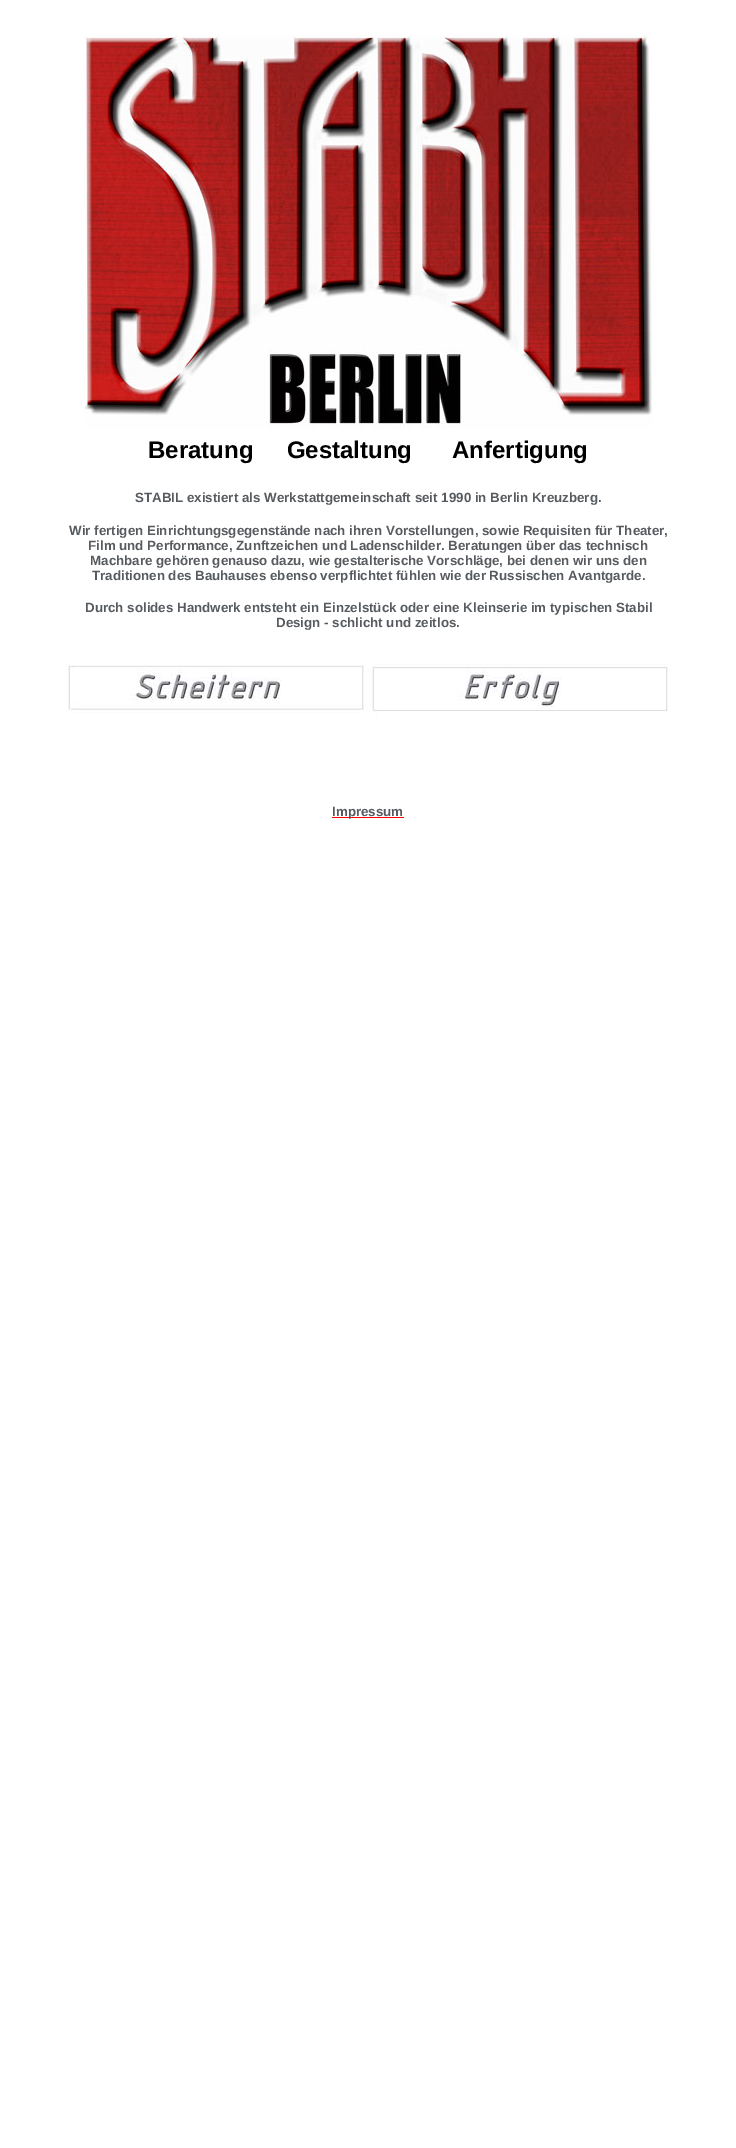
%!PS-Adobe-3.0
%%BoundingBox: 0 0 736 2148
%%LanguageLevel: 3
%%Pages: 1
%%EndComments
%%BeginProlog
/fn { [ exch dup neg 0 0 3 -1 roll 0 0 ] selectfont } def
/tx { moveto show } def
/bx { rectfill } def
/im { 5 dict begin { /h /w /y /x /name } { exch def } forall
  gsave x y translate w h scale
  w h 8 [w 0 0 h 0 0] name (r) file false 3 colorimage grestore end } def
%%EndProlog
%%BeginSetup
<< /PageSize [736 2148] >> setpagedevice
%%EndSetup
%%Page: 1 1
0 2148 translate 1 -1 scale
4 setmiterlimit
1 setgray
0 0 736 2148 bx
(image0.raw) 84 35 568 394 im
/LiberationSans-Bold 24 fn
0 setgray
(Beratung     Gestaltung) 148 458 tx
(Anfertigung) 452 458 tx
/LiberationSans-Bold 13.35 fn
0.341 0.357 0.373 setrgbcolor
(STABIL existiert als Werkstattgemeinschaft seit 1990 in Berlin Kreuzberg.) 135 502 tx
(Wir fertigen Einrichtungsgegenstände nach ihren Vorstellungen, sowie Requisiten für Theater,) 69 535 tx
(Film und Performance, Zunftzeichen und Ladenschilder. Beratungen über das technisch) 88 550 tx
(Machbare gehören genauso dazu, wie gestalterische Vorschläge, bei denen wir uns den) 90 565 tx
(Traditionen des Bauhauses ebenso verpflichtet fühlen wie der Russischen Avantgarde.) 92 580 tx
(Durch solides Handwerk entsteht ein Einzelstück oder eine Kleinserie im typischen Stabil) 85 612 tx
(Design - schlicht und zeitlos.) 276 627 tx
(image1.raw) 66 664 298 50 im
(image2.raw) 372 662 296 54 im
1 0 0 setrgbcolor
332 817 72 1 bx
0.341 0.357 0.373 setrgbcolor
(Impressum) 332 816 tx
showpage
%%EOF
